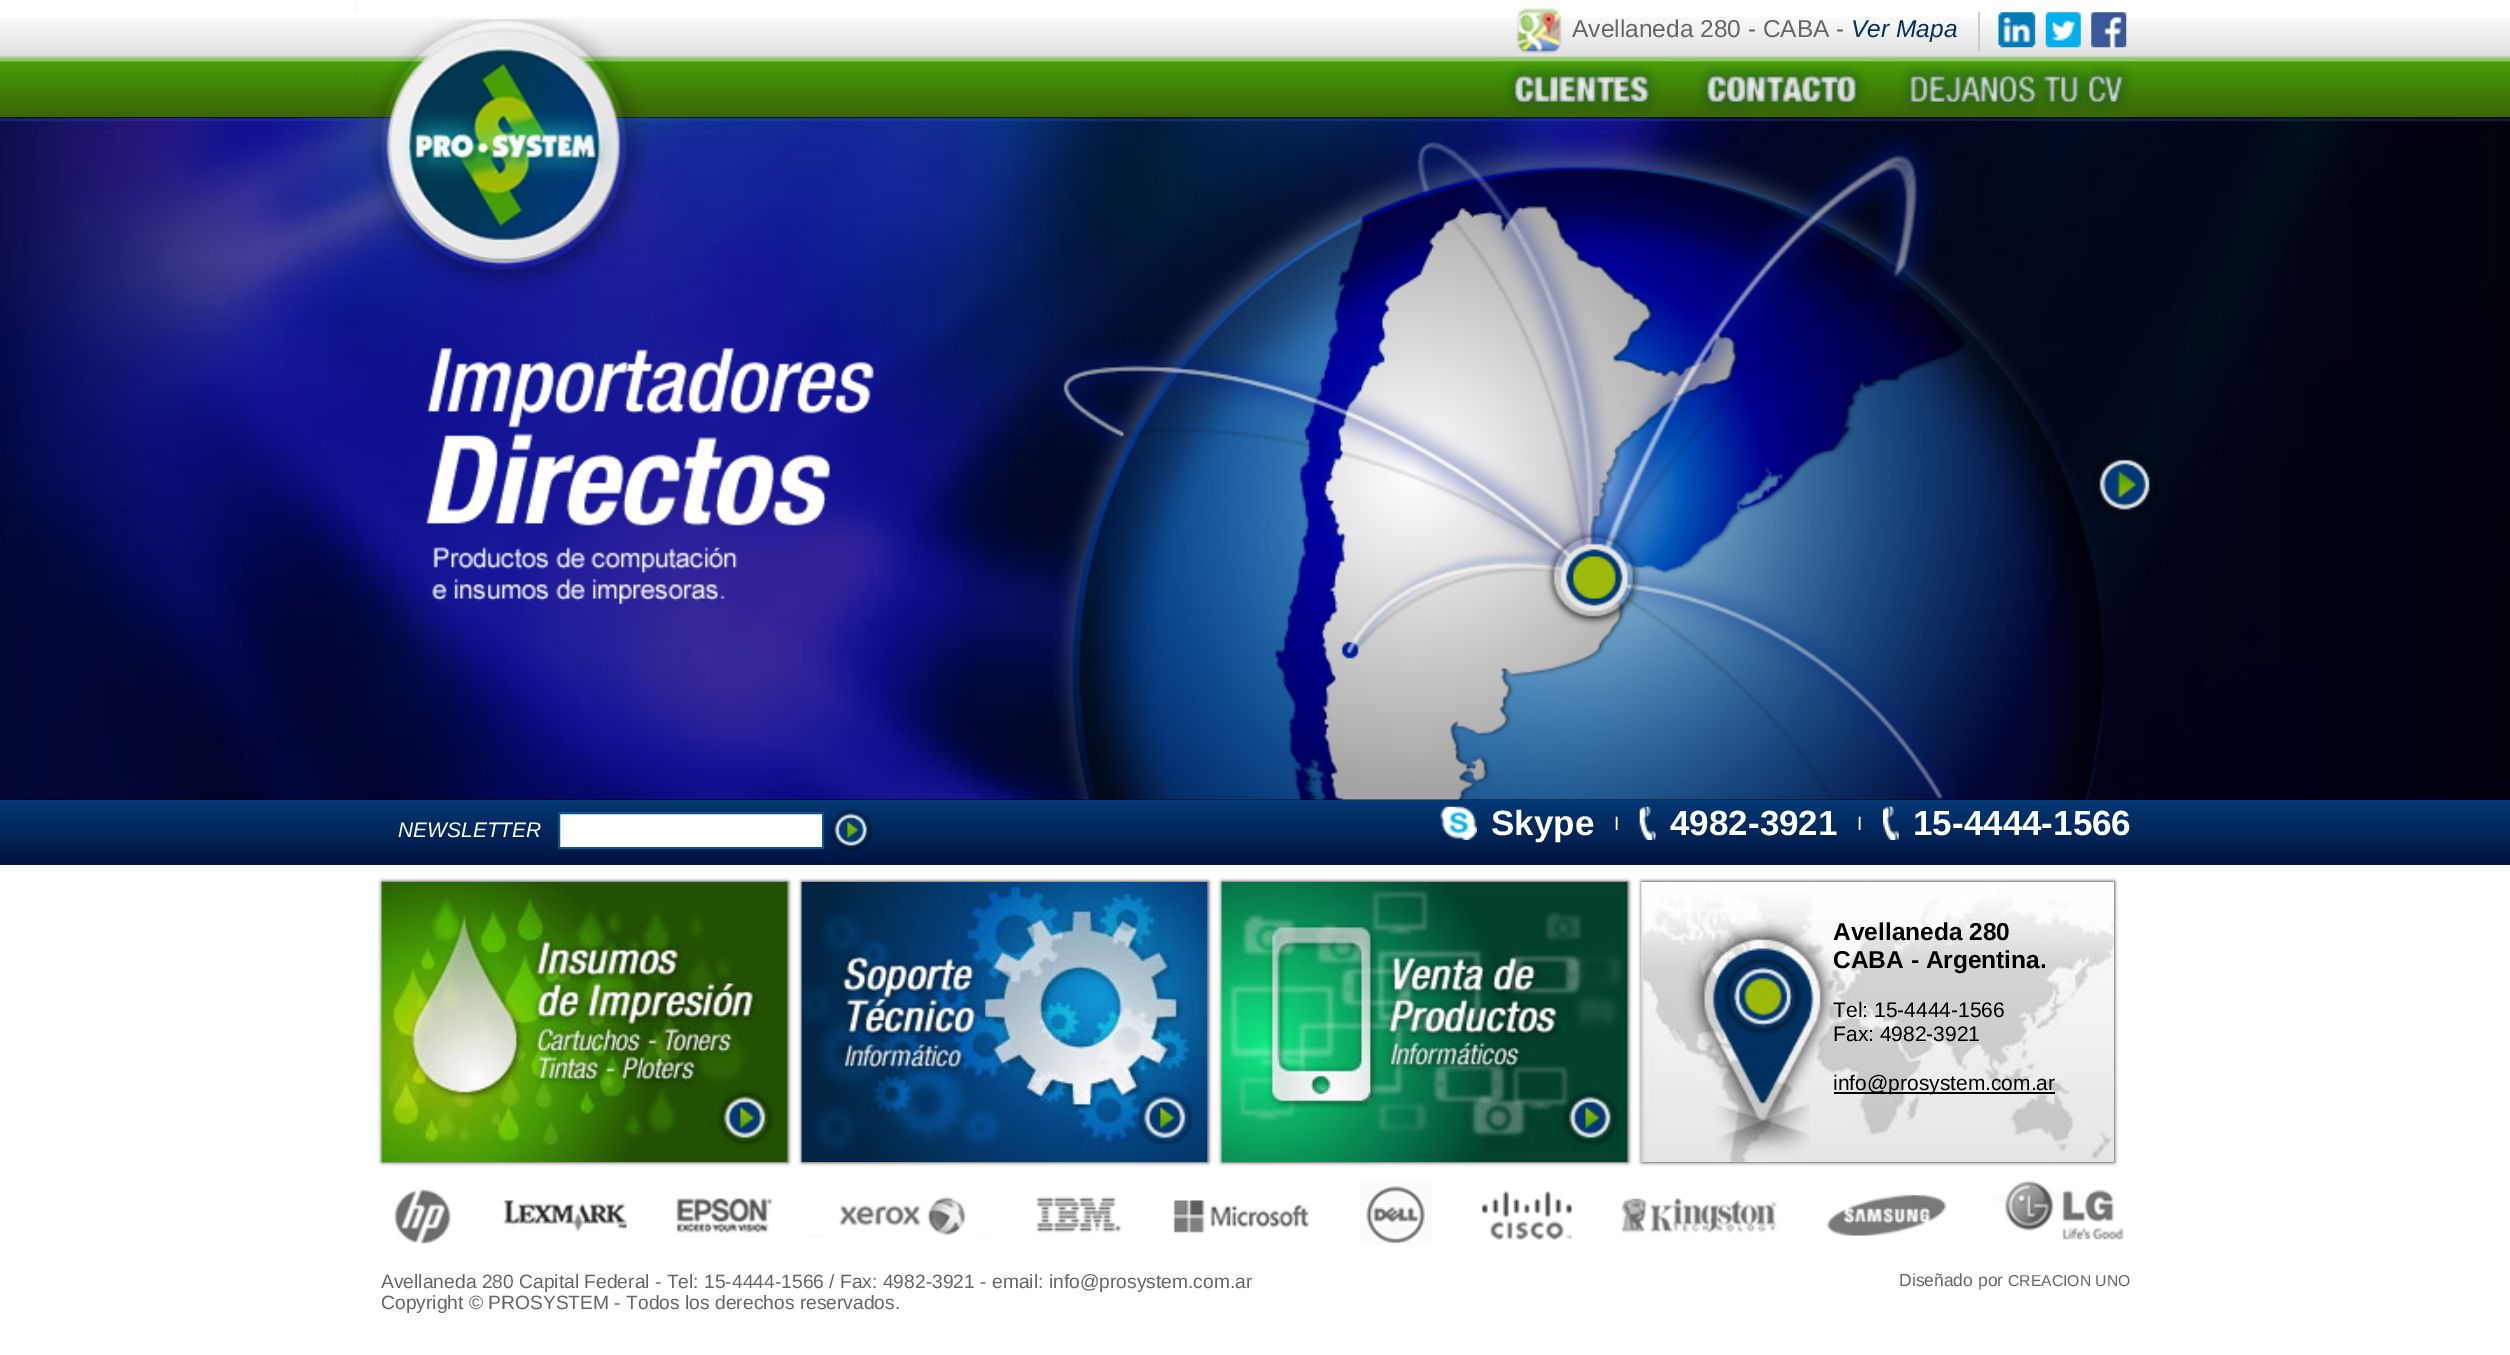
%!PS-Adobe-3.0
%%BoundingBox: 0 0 2510 1355
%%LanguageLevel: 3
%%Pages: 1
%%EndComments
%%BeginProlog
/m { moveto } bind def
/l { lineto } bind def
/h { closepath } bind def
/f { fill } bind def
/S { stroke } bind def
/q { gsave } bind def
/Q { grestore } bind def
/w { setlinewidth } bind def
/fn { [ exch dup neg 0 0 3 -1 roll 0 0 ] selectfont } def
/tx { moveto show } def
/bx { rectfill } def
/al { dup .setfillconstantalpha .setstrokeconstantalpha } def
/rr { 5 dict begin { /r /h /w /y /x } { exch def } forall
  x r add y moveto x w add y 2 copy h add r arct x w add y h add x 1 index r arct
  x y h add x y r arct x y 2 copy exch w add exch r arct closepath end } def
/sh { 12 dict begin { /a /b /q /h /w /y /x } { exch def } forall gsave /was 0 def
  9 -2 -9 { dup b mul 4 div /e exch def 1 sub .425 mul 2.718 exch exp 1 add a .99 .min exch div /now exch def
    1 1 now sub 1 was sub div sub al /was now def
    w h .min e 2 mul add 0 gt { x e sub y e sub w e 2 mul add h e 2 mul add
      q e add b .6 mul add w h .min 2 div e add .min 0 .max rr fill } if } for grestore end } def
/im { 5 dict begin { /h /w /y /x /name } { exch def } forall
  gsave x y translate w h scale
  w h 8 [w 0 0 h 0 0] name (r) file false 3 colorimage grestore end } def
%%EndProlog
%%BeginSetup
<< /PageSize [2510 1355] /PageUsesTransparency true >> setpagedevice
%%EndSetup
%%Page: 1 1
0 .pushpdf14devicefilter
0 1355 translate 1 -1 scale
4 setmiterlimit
1 setgray
0 0 2510 1355 bx
(image0.raw) 0 17 2510 100 im
0 setgray
0 117 2510 683 bx
(image9.raw) 0 117 2510 683 im
(image10.raw) 426 129 1678 671 im
(image1.raw) 355 0 294 294 im
(image2.raw) 1515 8 51 48 im
/LiberationSans-Regular 24.5 fn
0.4 setgray
(Avellaneda 280 - CABA -) 1572 37 tx
/LiberationSans-Italic 24.5 fn
0.004 0.18 0.396 setrgbcolor
(Ver Mapa) 1851 37 tx
0.8 setgray
1978 12 2 39 bx
(image3.raw) 1998 12 38 36 im
(image4.raw) 2045 12 36 36 im
(image5.raw) 2091 12 36 36 im
(image6.raw) 1496 57 170 60 im
(image7.raw) 1697 57 169 60 im
(image8.raw) 1898 57 234 60 im
(image11.raw) 2092 451 66 67 im
q 0 800 m 2510 800 l 2510 865 l 0 865 l h clip newpath
<< /ShadingType 2 /ColorSpace /DeviceRGB /Coords [1256 800 1256 865] /Extend [true true] /Function << /FunctionType 2 /Domain [0 1] /C0 [0.004 0.224 0.455] /C1 [0.008 0.075 0.251] /N 1 >> >> shfill Q
/LiberationSans-Italic 21 fn
1 setgray
(NEWSLETTER) 398 837 tx
559 813 m 823 813 l 823 848 l 559 848 l h q f Q
0.055 0.325 0.541 setrgbcolor
2 w
S
(image12.raw) 830 809 43 43 im
(image13.raw) 1440 806 37 34 im
/LiberationSans-Bold 35 fn
1 setgray
(Skype) 1491 835 tx
/LiberationSans-Regular 19.25 fn
(I) 1614 830 tx
(image14.raw) 1639 806 17 34 im
/LiberationSans-Bold 35 fn
(4982-3921) 1670 835 tx
/LiberationSans-Regular 19.25 fn
(I) 1857 830 tx
(image15.raw) 1883 806 16 34 im
/LiberationSans-Bold 35 fn
(15-4444-1566) 1913 835 tx
0 setgray
382 882 406 280 0 2 1 sh
(image16.raw) 381 882 407 280 im
802 882 406 280 0 2 1 sh
(image17.raw) 801 882 407 280 im
1222 882 406 280 0 2 1 sh
(image18.raw) 1221 882 407 280 im
1642 882 472 280 0 2 1 sh
(image19.raw) 1641 882 473 280 im
/LiberationSans-Bold 24.5 fn
(Avellaneda 280) 1833 940 tx
(CABA - Argentina.) 1833 968 tx
/LiberationSans-Regular 21 fn
(Tel: 15-4444-1566) 1833 1017 tx
(Fax: 4982-3921) 1833 1041 tx
1834 1092 221 2 bx
(info@prosystem.com.ar) 1833 1090 tx
(image20.raw) 393 1181 1731 64 im
/LiberationSans-Regular 19.25 fn
0.4 setgray
(Avellaneda 280 Capital Federal - Tel: 15-4444-1566 / Fax: 4982-3921 - email: info@prosystem.com.ar) 381 1288 tx
(Copyright © PROSYSTEM - Todos los derechos reservados.) 381 1309 tx
/LiberationSans-Regular 17.5 fn
(Diseñado por) 1899 1286 tx
/LiberationSans-Regular 15.75 fn
(CREACION UNO) 2008 1286 tx
.poppdf14devicefilter showpage
%%EOF
